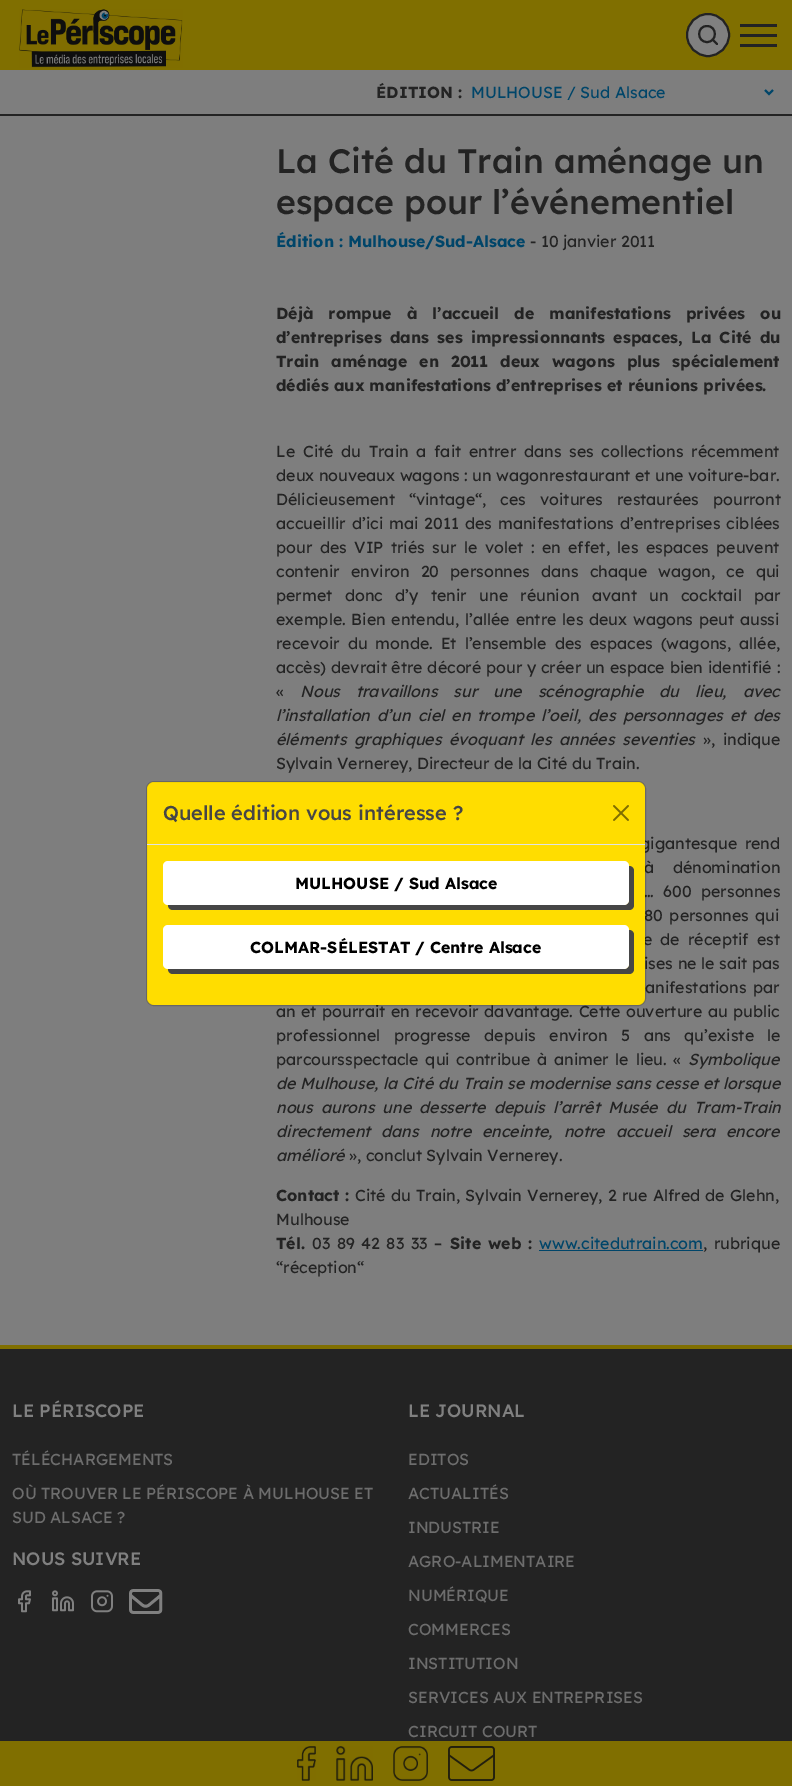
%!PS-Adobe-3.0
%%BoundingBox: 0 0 792 1786
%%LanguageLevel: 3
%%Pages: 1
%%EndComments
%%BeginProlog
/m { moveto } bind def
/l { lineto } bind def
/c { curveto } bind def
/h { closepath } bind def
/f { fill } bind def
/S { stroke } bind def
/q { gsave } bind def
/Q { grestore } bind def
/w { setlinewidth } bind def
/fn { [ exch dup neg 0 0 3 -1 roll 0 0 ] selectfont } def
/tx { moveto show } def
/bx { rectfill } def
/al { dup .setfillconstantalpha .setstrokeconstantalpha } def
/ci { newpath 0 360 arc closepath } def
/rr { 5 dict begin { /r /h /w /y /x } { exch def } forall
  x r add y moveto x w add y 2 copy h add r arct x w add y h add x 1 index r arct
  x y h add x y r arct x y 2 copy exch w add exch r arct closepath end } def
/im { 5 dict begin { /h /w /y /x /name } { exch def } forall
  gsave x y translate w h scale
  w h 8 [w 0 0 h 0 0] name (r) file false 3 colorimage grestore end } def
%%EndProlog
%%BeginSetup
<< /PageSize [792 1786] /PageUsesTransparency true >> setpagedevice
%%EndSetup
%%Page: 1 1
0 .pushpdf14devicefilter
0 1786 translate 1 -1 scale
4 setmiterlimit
0.494 setgray
0 0 792 1786 bx
0.502 0.435 0 setrgbcolor
0 0 792 70 bx
(image0.raw) 19 9 164 59 im
0.502 setgray
708 35 21 ci q f Q
0.137 setgray
2 w
S
1 setlinecap
1 setlinejoin
707 42 m 717.5 42 717.5 26 707 26 c 696.5 26 696.5 42 707 42 c h 717 44 m 712.5 39.5 l S
740 24 37 3 bx
740 34 37 3 bx
740 44 37 3 bx
0 114 792 2 bx
/Lexend-Bold 16 fn
(ÉDITION :) 376 98 tx
0 0.271 0.412 setrgbcolor
0 setlinecap
0 setlinejoin
765 90 m 769 94 l 773 90 l S
/Lexend-Regular 16 fn
(MULHOUSE / Sud Alsace) 471 98 tx
/Lexend-Medium 33.9 fn
0.137 setgray
(La Cité du Train aménage un) 276 173 tx
(espace pour l’événementiel) 276 214 tx
/Lexend-Bold 16 fn
0 0.271 0.412 setrgbcolor
(Édition : Mulhouse/Sud-Alsace) 276 247 tx
/Lexend-Regular 16 fn
0.137 setgray
(- 10 janvier 2011) 530 247 tx
/Lexend-Bold 16 fn
276 319 m 10 0 32 (Déjà rompue à l’accueil de manifestations privées ou) widthshow
276 343 m 3.25 0 32 (d’entreprises dans ses impressionnants espaces, La Cité du) widthshow
276 367 m 6.75 0 32 (Train aménage en 2011 deux wagons plus spécialement) widthshow
(dédiés aux manifestations d’entreprises et réunions privées.) 276 391 tx
/Lexend-Regular 16 fn
276 457 m 3.25 0 32 (Le Cité du Train a fait entrer dans ses collections récemment) widthshow
(deux nouveaux wagons : un wagonrestaurant et une voiture-bar.) 276 481 tx
276 505 m 9.5 0 32 (Délicieusement “vintage“, ces voitures restaurées pourront) widthshow
276 529 m 1.5 0 32 (accueillir d’ici mai 2011 des manifestations d’entreprises ciblées) widthshow
276 553 m 3 0 32 (pour des VIP triés sur le volet : en effet, les espaces peuvent) widthshow
276 577 m 6.75 0 32 (contenir environ 20 personnes dans chaque wagon, ce qui) widthshow
276 601 m 8 0 32 (permet donc d’y tenir une réunion avant un cocktail par) widthshow
276 625 m 1.25 0 32 (exemple. Bien entendu, l’allée entre les deux wagons peut aussi) widthshow
276 649 m 3.5 0 32 (recevoir du monde. Et l’ensemble des espaces \(wagons, allée,) widthshow
276 673 m 0.25 0 32 (accès\) devrait être décoré pour y créer un espace bien identifié :) widthshow
(«) 276 697 tx
/Lexend-Italic 16 fn
300 697 m 11.5 0 32 (Nous travaillons sur une scénographie du lieu, avec) widthshow
276 721 m 2.75 0 32 (l’installation d’un ciel en trompe l’oeil, des personnages et des) widthshow
276 745 m 3 0 32 (éléments graphiques évoquant les années seventies) widthshow
/Lexend-Regular 16 fn
703 745 m 3 0 32 (», indique) widthshow
(Sylvain Vernerey, Directeur de la Cité du Train.) 276 769 tx
640 849 m 3 0 32 (gigantesque rend) widthshow
644 873 m 14 0 32 (à dénomination) widthshow
644 897 m 5 0 32 (… 600 personnes) widthshow
644 921 m 2 0 32 (80 personnes qui) widthshow
643 945 m 3.5 0 32 (e de réceptif est) widthshow
(ises ne le sait pas) 644 969 tx
645 993 m 2 0 32 (anifestations par) widthshow
276 1017 m 1 0 32 (an et pourrait en recevoir davantage. Cette ouverture au public) widthshow
276 1041 m 9 0 32 (professionnel progresse depuis environ 5 ans qu’existe le) widthshow
276 1065 m 2.25 0 32 (parcoursspectacle qui contribue à animer le lieu. «) widthshow
/Lexend-Italic 16 fn
(Symbolique) 688 1065 tx
276 1089 m 0.4 0 32 (de Mulhouse, la Cité du Train se modernise sans cesse et lorsque) widthshow
276 1113 m 3.75 0 32 (nous aurons une desserte depuis l’arrêt Musée du Tram-Train) widthshow
276 1137 m 6.5 0 32 (directement dans notre enceinte, notre accueil sera encore) widthshow
(amélioré) 276 1161 tx
/Lexend-Regular 16 fn
(», conclut Sylvain Vernerey.) 349 1161 tx
/Lexend-Bold 16 fn
276 1201 m 0.75 0 32 (Contact :) widthshow
/Lexend-Regular 16 fn
355 1201 m 0.75 0 32 (Cité du Train, Sylvain Vernerey, 2 rue Alfred de Glehn,) widthshow
(Mulhouse) 276 1225 tx
/Lexend-Bold 16 fn
(Tél.) 276 1249 tx
/Lexend-Regular 16 fn
312 1249 m 2 0 32 (03 89 42 83 33 –) widthshow
/Lexend-Bold 16 fn
450 1249 m 2 0 32 (Site web :) widthshow
/Lexend-Regular 16 fn
0 0.271 0.412 setrgbcolor
(www.citedutrain.com) 539 1249 tx
539 1250 164 1 bx
0.137 setgray
703 1249 m 2 0 32 (, rubrique) widthshow
(“réception“) 276 1273 tx
1 0.867 0 setrgbcolor
147 782 498 223 7 rr f
0.18 al
0 setgray
1 w
146.5 781.5 499 224 7.5 rr S
1 al
0.871 0.886 0.902 setrgbcolor
147 844 498 1 bx
/Lexend-Medium 20 fn
0.275 setgray
(Quelle édition vous intéresse ?) 163 820 tx
(image1.raw) 613 805 16 16 im
168 905 m 168 908 170 910 173 910 c 629 910 l 632 910 634 908 634 905 c 634 871 l 634 868 632 866 629 866 c 629 900 l 629 903 627 905 624 905 c h f
1 setgray
163 861 466 44 5 rr f
/Lexend-Bold 16 fn
0 setgray
(MULHOUSE / Sud Alsace) 295 889 tx
0.275 setgray
168 969 m 168 972 170 974 173 974 c 629 974 l 632 974 634 972 634 969 c 634 935 l 634 932 632 930 629 930 c 629 964 l 629 967 627 969 624 969 c h f
1 setgray
163 925 466 44 5 rr f
0 setgray
(COLMAR-SÉLESTAT / Centre Alsace) 250 953 tx
0.137 setgray
0 1349 792 392 bx
0.502 0.435 0 setrgbcolor
0 1345 792 4 bx
/Lexend-Medium 18 fn
0.502 setgray
(LE PÉRISCOPE) 12 1417 tx
/Lexend-Regular 16 fn
0.427 setgray
(TÉLÉCHARGEMENTS) 12 1465 tx
(OÙ TROUVER LE PÉRISCOPE À MULHOUSE ET) 12 1499 tx
(SUD ALSACE ?) 12 1523 tx
/Lexend-Medium 18 fn
0.502 setgray
(NOUS SUIVRE) 12 1565 tx
(image2.raw) 18 1590 13 23 im
(image3.raw) 52 1590 22 22 im
(image4.raw) 91 1590 22 23 im
(image5.raw) 129 1589 34 25 im
(LE JOURNAL) 408 1417 tx
/Lexend-Regular 16 fn
0.427 setgray
(EDITOS) 408 1465 tx
(ACTUALITÉS) 408 1499 tx
(INDUSTRIE) 408 1533 tx
(AGRO-ALIMENTAIRE) 408 1567 tx
(NUMÉRIQUE) 408 1601 tx
(COMMERCES) 408 1635 tx
(INSTITUTION) 408 1669 tx
(SERVICES AUX ENTREPRISES) 408 1703 tx
(CIRCUIT COURT) 408 1737 tx
0.502 0.435 0 setrgbcolor
0 1741 792 45 bx
(image6.raw) 297 1746 19 35 im
(image7.raw) 336 1746 37 35 im
(image8.raw) 393 1746 35 35 im
(image9.raw) 448 1746 47 35 im
.poppdf14devicefilter showpage
%%EOF
